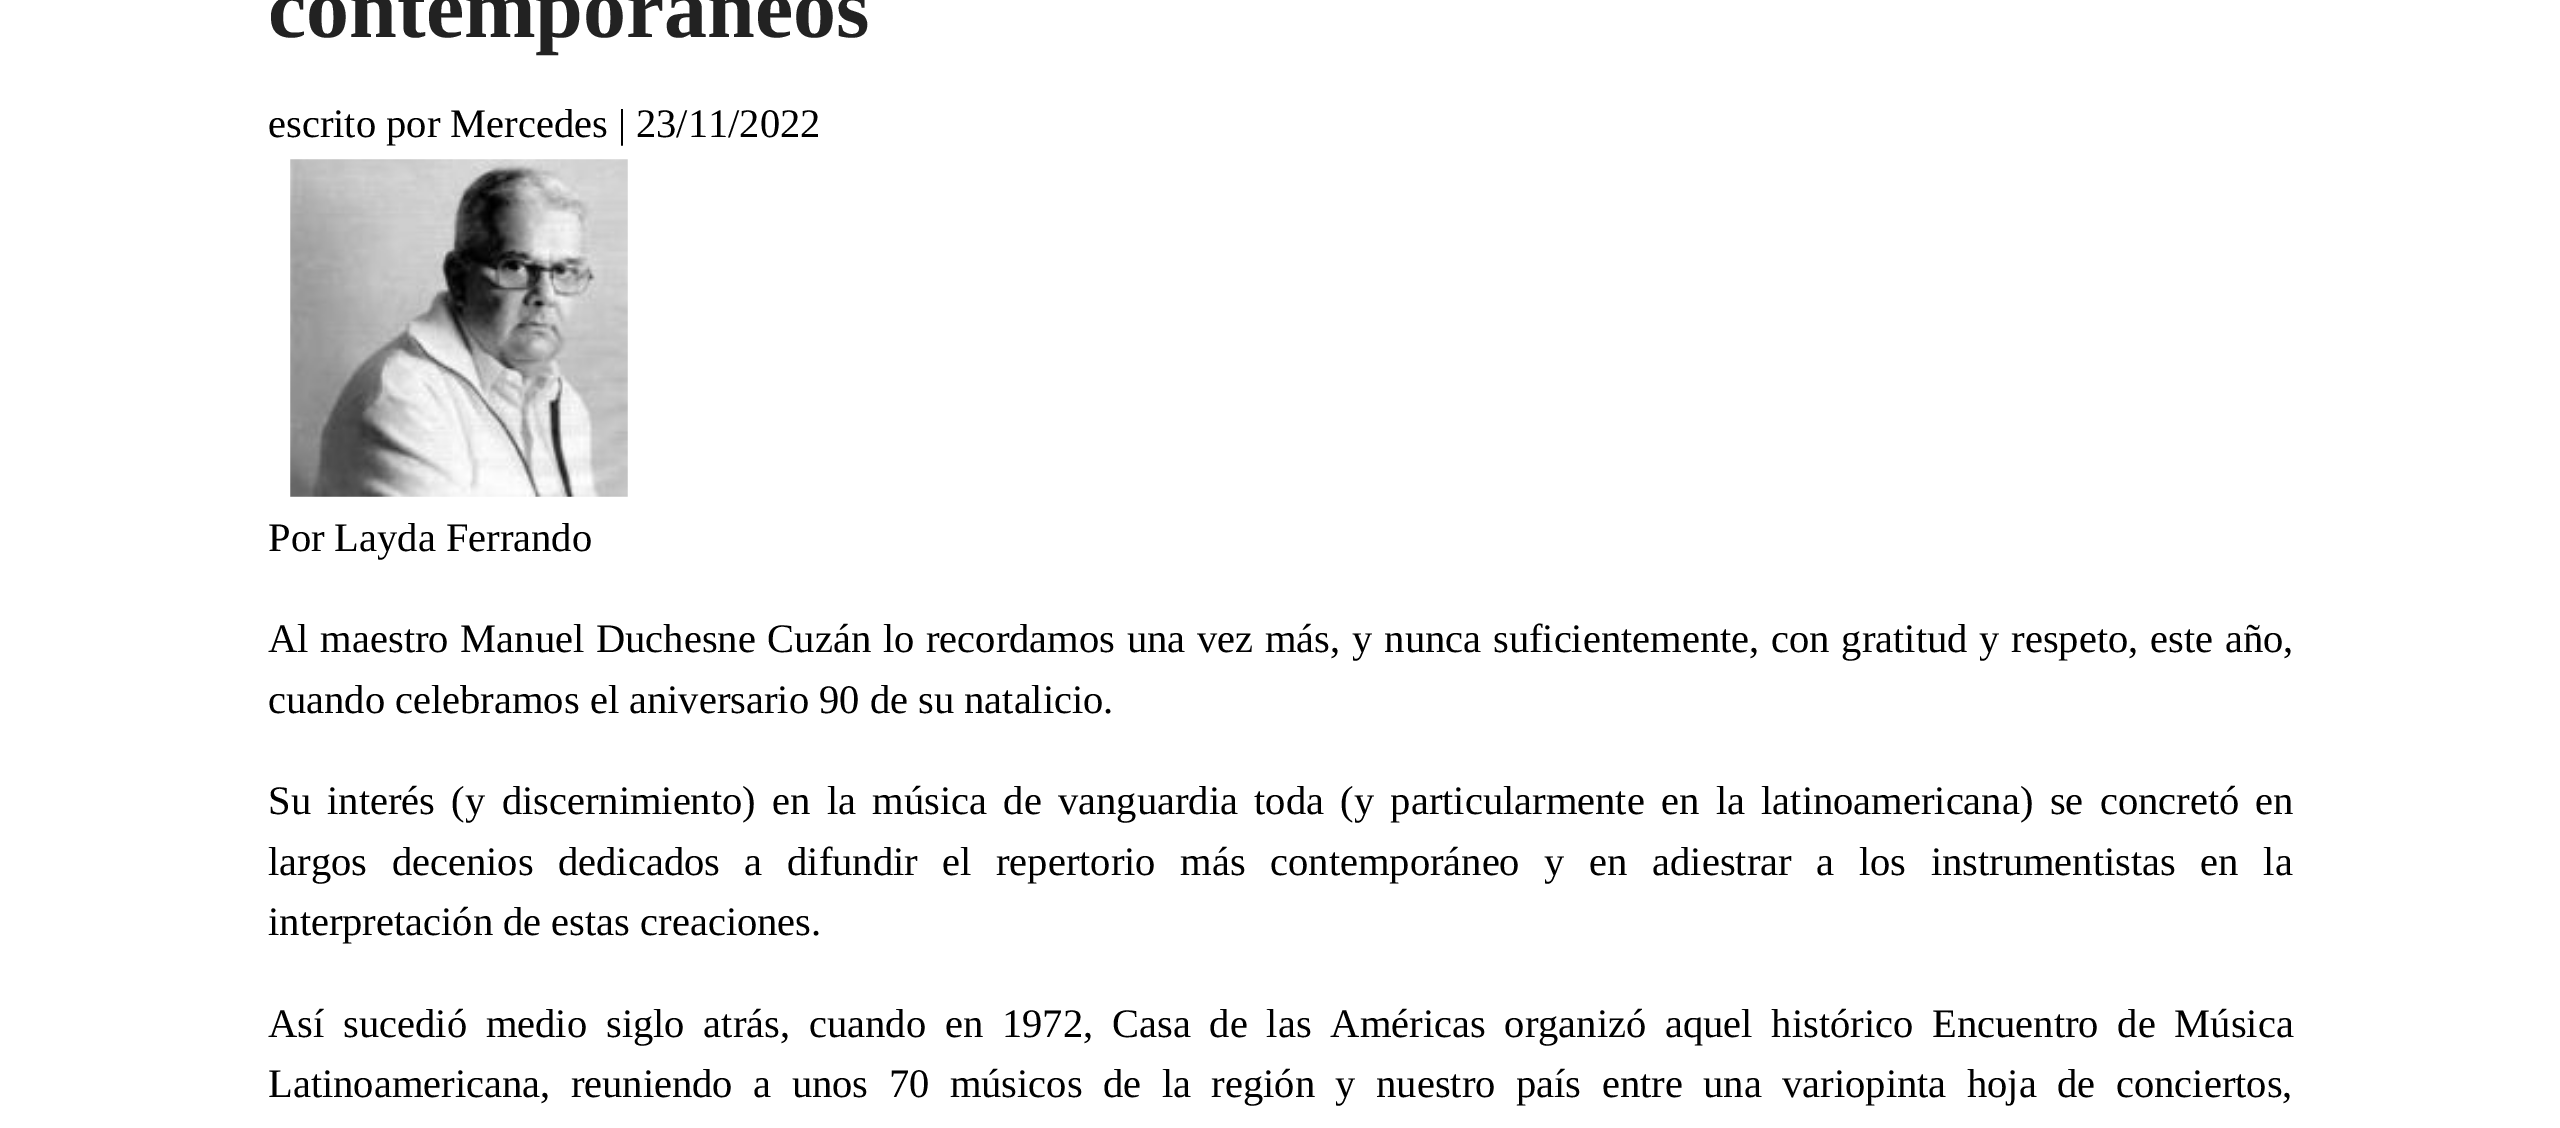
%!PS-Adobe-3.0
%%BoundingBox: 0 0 2560 1128
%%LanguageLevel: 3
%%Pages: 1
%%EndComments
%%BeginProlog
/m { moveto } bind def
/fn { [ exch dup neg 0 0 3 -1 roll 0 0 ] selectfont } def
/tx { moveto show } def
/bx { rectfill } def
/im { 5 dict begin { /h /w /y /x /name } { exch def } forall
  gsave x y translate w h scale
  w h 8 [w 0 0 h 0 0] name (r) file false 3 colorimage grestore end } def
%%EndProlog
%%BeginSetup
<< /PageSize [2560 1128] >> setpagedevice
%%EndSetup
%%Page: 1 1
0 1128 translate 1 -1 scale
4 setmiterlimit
1 setgray
0 0 2560 1128 bx
/LiberationSerif-Bold 86 fn
0.133 setgray
(contemporáneos) 268 37 tx
/LiberationSerif-Regular 40.5 fn
0 setgray
(escrito por Mercedes | 23/11/2022) 268 137 tx
(image0.raw) 290 159 338 338 im
(Por Layda Ferrando) 268 551 tx
268 652 m 1.7 0 32 (Al maestro Manuel Duchesne Cuzán lo recordamos una vez más, y nunca suficientemente, con gratitud y respeto, este año,) widthshow
(cuando celebramos el aniversario 90 de su natalicio.) 268 713 tx
268 814 m 6.25 0 32 (Su interés \(y discernimiento\) en la música de vanguardia toda \(y particularmente en la latinoamericana\) se concretó en) widthshow
268 875 m 14.5 0 32 (largos decenios dedicados a difundir el repertorio más contemporáneo y en adiestrar a los instrumentistas en la) widthshow
(interpretación de estas creaciones.) 268 935 tx
268 1037 m 8.75 0 32 (Así sucedió medio siglo atrás, cuando en 1972, Casa de las Américas organizó aquel histórico Encuentro de Música) widthshow
268 1097 m 10.4 0 32 (Latinoamericana, reuniendo a unos 70 músicos de la región y nuestro país entre una variopinta hoja de conciertos,) widthshow
showpage
%%EOF
